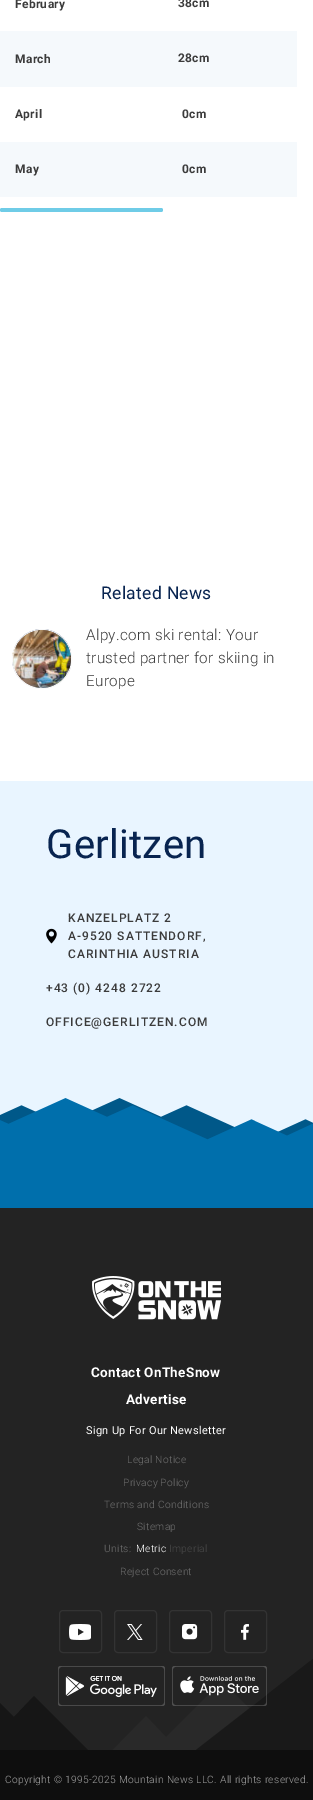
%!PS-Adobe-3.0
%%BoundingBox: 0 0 313 1800
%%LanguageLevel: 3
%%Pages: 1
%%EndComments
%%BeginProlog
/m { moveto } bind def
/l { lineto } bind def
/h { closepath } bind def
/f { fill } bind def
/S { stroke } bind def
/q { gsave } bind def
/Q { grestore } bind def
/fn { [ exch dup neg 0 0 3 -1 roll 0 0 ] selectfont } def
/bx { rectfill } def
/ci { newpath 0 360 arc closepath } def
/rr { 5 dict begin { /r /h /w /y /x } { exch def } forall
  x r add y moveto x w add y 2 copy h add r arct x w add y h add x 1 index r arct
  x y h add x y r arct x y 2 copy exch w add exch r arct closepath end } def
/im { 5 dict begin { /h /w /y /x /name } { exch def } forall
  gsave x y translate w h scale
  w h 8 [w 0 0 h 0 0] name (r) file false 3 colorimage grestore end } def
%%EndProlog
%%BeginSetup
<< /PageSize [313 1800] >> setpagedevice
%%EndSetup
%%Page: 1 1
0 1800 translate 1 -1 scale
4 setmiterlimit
1 setgray
0 0 313 1800 bx
/Roboto-Bold 12 fn
0.231 setgray
15 8 m 0.32 0 (February) ashow
178 7 m 0.32 0 (38cm) ashow
0.961 0.976 0.988 setrgbcolor
0 31 297 56 bx
0.231 setgray
15 63 m 0.32 0 (March) ashow
178 62 m 0.32 0 (28cm) ashow
15 118 m 0.32 0 (April) ashow
182 118 m 0.32 0 (0cm) ashow
0.961 0.976 0.988 setrgbcolor
0 142 297 55 bx
0.231 setgray
15 173 m 0.32 0 (May) ashow
182 173 m 0.32 0 (0cm) ashow
0.435 0.8 0.906 setrgbcolor
0 208 163 4 2 rr f
/Roboto-Regular 17.5 fn
0.031 0.141 0.314 setrgbcolor
101 599 m 0.32 0 (Related News) ashow
(image0.raw) 12 629 59 59 im
0.976 setgray
42 659 29.5 ci S
(image1.raw) 13 630 58 58 im
/Roboto-Light 15.25 fn
0.231 setgray
86 640 m 0.32 0 (Alpy.com ski rental: Your) ashow
86 663 m 0.32 0 (trusted partner for skiing in) ashow
86 686 m 0.32 0 (Europe) ashow
0.914 0.961 1 setrgbcolor
0 781 313 351 bx
(image2.raw) 0 1098 313 110 im
/Roboto-Regular 40 fn
0.031 0.141 0.314 setrgbcolor
46 858 m 0.32 0 (Gerlitzen) ashow
(image3.raw) 46 928 11 16 im
/Roboto-Medium 12 fn
0.231 setgray
68 922 m 1 0 (KANZELPLATZ 2) ashow
68 940 m 1 0 (A-9520 SATTENDORF,) ashow
68 958 m 1 0 (CARINTHIA AUSTRIA) ashow
46 992 m 1 0 (+43 \(0\) 4248 2722) ashow
46 1026 m 1 0 (OFFICE@GERLITZEN.COM) ashow
0.137 setgray
0 1208 313 542 bx
(image4.raw) 92 1276 129 44 im
/Roboto-Bold 13.5 fn
1 setgray
91 1377 m 0.32 0 (Contact OnTheSnow) ashow
126 1404 m 0.32 0 (Advertise) ashow
/Roboto-Regular 11 fn
86 1434 m 0.32 0 (Sign Up For Our Newsletter) ashow
/Roboto-Light 10.2 fn
0.435 setgray
127 1463 m 0.32 0 (Legal Notice) ashow
123 1486 m 0.32 0 (Privacy Policy) ashow
104 1508 m 0.32 0 (Terms and Conditions) ashow
137 1530 m 0.32 0 (Sitemap) ashow
104 1552 m 0.32 0 (Units:) ashow
1 setgray
136 1552 m 0.32 0 (Metric) ashow
0.286 setgray
169 1552 m 0.32 0 (Imperial) ashow
0.435 setgray
120 1575 m 0.32 0 (Reject Consent) ashow
0.2 setgray
59.5 1610.5 42 42 3.5 rr S
(image5.raw) 69 1624 22 16 im
114.5 1610.5 42 42 3.5 rr S
(image6.raw) 127 1624 16 16 im
169.5 1610.5 42 42 3.5 rr S
(image7.raw) 182 1624 16 16 im
224.5 1610.5 42 42 3.5 rr S
(image8.raw) 241 1624 8 16 im
0.086 setgray
-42 1661 m -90 1709 l -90 1750 l 88 1750 l 34 1696 l 14 1717 l h f
q
93 1681 220 69 rectclip
0.161 setgray
222 1681 m 270 1729 l 313 1770 l 93 1770 l 146 1716 l 166 1737 l h f
Q
(image9.raw) 58 1666 107 40 im
0.098 setgray
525 1586 m 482 1620 l 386 1602 l 196 1750 l 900 1750 l 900 1710 l 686 1543 l 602 1586 l h f
(image10.raw) 172 1666 95 40 im
0.055 setgray
0 1750 313 50 bx
0.624 setgray
5 1783 m 0.32 0 (Copyright © 1995-2025 Mountain News LLC. All rights reserved.) ashow
showpage
%%EOF
